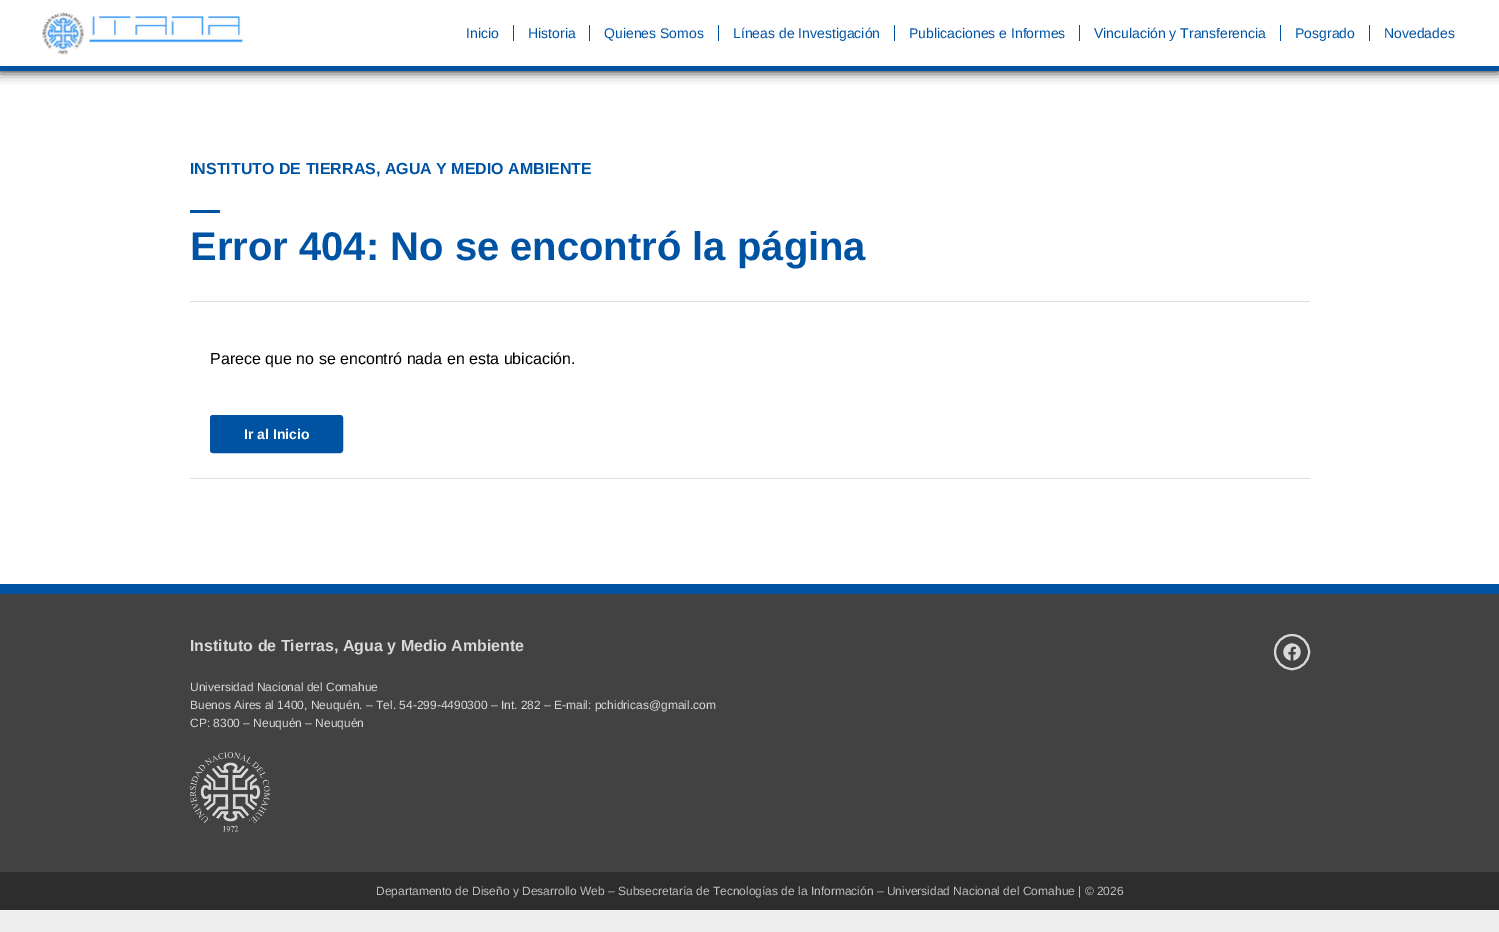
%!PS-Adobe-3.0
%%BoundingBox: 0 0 1499 932
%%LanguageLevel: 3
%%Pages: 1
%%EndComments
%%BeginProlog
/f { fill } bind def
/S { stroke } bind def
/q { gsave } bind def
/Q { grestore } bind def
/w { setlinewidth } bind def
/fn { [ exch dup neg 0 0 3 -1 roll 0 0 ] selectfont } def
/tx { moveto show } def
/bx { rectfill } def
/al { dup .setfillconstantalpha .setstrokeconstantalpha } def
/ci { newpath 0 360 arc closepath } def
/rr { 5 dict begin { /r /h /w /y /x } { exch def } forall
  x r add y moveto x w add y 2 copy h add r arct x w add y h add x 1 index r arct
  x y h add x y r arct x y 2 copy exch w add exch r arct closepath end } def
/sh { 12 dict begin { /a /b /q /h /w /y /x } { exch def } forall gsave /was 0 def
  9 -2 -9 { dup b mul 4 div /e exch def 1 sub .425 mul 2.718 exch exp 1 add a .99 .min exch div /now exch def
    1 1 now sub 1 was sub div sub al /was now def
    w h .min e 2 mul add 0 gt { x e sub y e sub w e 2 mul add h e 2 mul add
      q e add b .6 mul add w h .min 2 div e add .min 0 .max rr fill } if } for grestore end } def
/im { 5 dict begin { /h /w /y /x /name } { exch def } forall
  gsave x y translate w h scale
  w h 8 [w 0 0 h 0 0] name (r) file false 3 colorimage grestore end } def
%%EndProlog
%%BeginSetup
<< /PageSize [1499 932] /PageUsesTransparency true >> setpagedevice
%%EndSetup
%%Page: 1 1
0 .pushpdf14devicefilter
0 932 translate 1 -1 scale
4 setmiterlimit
0.933 setgray
0 0 1499 932 bx
1 setgray
0 71 1499 513 bx
0 setgray
0 0 1499 71 0 6 1 sh
1 setgray
0 0 1499 66 bx
0 0.322 0.639 setrgbcolor
0 66 1499 5 bx
(image0.raw) 42 10 201 45 im
/LiberationSans-Regular 14 fn
(Inicio) 466 38 tx
513 25 1 16 bx
(Historia) 528 38 tx
589 25 1 16 bx
(Quienes Somos) 604 38 tx
718 25 1 16 bx
(Líneas de Investigación) 733 38 tx
894 25 1 16 bx
(Publicaciones e Informes) 909 38 tx
1079 25 1 16 bx
(Vinculación y Transferencia) 1094 38 tx
1280 25 1 16 bx
(Posgrado) 1295 38 tx
1369 25 1 16 bx
(Novedades) 1384 38 tx
/LiberationSans-Bold 16 fn
(INSTITUTO DE TIERRAS, AGUA Y MEDIO AMBIENTE) 190 174 tx
190 210 30 3 bx
/LiberationSans-Bold 40 fn
(Error 404: No se encontró la página) 190 260 tx
0.878 setgray
190 301 1120 1 bx
/LiberationSans-Regular 16 fn
0 setgray
(Parece que no se encontró nada en esta ubicación.) 210 364 tx
0 0.322 0.639 setrgbcolor
212 417 129 34 1 rr q f Q
4 w
S
/LiberationSans-Bold 14 fn
1 setgray
(Ir al Inicio) 244 439 tx
0.878 setgray
190 478 1120 1 bx
0.259 setgray
0 594 1499 278 bx
0 0.322 0.639 setrgbcolor
0 584 1499 10 bx
/LiberationSans-Bold 16 fn
0.851 setgray
(Instituto de Tierras, Agua y Medio Ambiente) 190 651 tx
/LiberationSans-Regular 12 fn
(Universidad Nacional del Comahue) 190 691 tx
(Buenos Aires al 1400, Neuquén. – Tel. 54-299-4490300 – Int. 282 – E-mail: pchidricas@gmail.com) 190 709 tx
(CP: 8300 – Neuquén – Neuquén) 190 727 tx
(image1.raw) 190 752 80 80 im
2 w
1292 652 17 ci S
(image2.raw) 1283 643 18 18 im
0.176 setgray
0 872 1499 38 bx
0.741 setgray
(Departamento de Diseño y Desarrollo Web – Subsecretaría de Tecnologías de la Información – Universidad Nacional del Comahue | © 2026) 376 895 tx
.poppdf14devicefilter showpage
%%EOF
